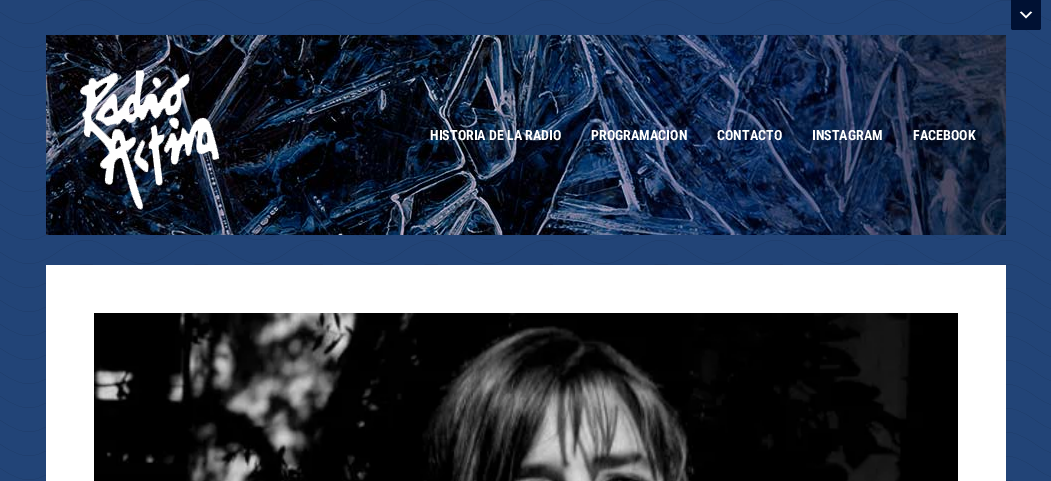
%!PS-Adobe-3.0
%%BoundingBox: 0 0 1051 481
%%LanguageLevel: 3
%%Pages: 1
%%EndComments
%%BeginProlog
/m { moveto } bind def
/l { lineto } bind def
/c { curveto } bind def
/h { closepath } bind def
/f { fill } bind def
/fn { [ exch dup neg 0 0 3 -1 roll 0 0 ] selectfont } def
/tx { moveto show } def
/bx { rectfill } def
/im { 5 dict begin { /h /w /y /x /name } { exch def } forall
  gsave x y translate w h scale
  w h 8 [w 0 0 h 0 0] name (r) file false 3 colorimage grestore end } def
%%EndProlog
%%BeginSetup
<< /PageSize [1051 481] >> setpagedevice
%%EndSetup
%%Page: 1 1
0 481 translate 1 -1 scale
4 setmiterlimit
0.133 0.267 0.467 setrgbcolor
0 0 1051 481 bx
(image0.raw) 0 0 1051 481 im
0 0.067 0.2 setrgbcolor
1011 0 m 1041 0 l 1041 28 l 1041 29 1040 30 1039 30 c 1013 30 l 1012 30 1011 29 1011 28 c h f
(image1.raw) 1019 11 14 8 im
(image2.raw) 46 35 960 200 im
(image3.raw) 80 70 140 140 im
/RobotoCondensed-Bold 14 fn
1 setgray
(HISTORIA DE LA RADIO) 430 140 tx
(PROGRAMACION) 591 140 tx
(CONTACTO) 717 140 tx
(INSTAGRAM) 812 140 tx
(FACEBOOK) 913 140 tx
46 265 960 216 bx
(image4.raw) 94 313 864 168 im
showpage
%%EOF
